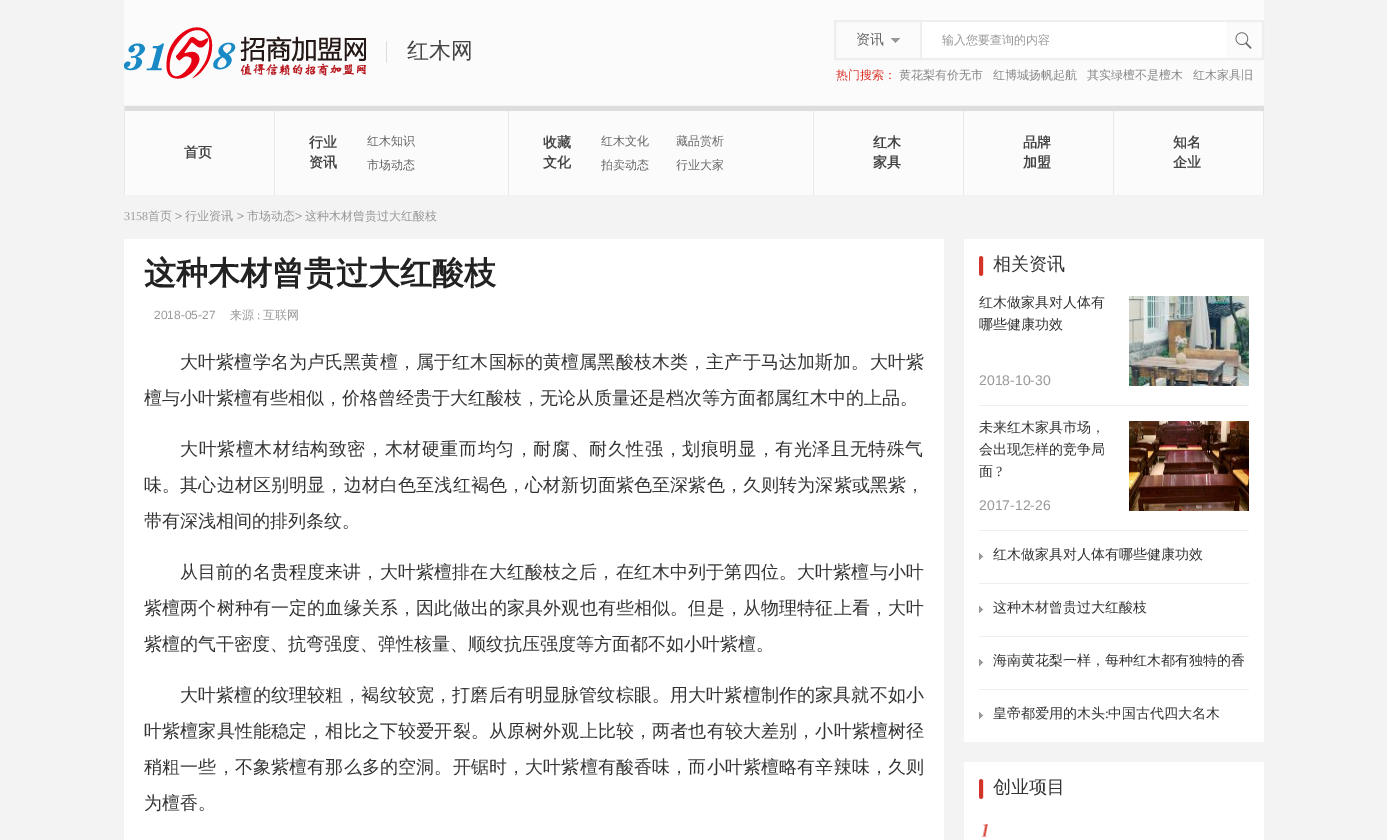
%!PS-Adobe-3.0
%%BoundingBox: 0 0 1387 840
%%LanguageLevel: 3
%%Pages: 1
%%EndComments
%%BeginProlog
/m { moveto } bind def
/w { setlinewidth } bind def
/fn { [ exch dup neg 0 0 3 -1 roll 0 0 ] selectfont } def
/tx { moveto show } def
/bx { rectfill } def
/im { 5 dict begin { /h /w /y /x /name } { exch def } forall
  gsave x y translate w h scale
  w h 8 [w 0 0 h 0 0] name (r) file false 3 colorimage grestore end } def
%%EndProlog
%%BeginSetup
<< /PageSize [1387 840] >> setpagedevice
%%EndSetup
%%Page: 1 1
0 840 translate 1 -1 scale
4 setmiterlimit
0.953 setgray
0 0 1387 840 bx
0.984 setgray
124 0 1140 105 bx
(image0.raw) 124 27 242 52 im
0.867 setgray
386 41 1 22 bx
/WenQuanYiZenHei-Medium 22 fn
0.267 setgray
(红木网) 407 58 tx
0.933 setgray
2 w
835 21 428 38 rectstroke
(image1.raw) 891 38 9 5 im
920 22 2 36 bx
/WenQuanYiZenHei-Medium 14 fn
0.4 setgray
(资讯) 856 44 tx
1 setgray
922 22 304 36 bx
/WenQuanYiZenHei-Medium 12 fn
0.6 setgray
(输入您要查询的内容) 942 44 tx
(image2.raw) 1235 32 17 17 im
0.859 0.204 0.157 setrgbcolor
(热门搜索：) 836 79 tx
0.533 setgray
(黄花梨有价无市) 899 79 tx
(红博城扬帆起航) 993 79 tx
(其实绿檀不是檀木) 1087 79 tx
(红木家具旧) 1193 79 tx
0.984 setgray
125 111 1138 84 bx
0.914 setgray
124 106 1 89 bx
0.867 setgray
125 106 1139 5 bx
0.914 setgray
274 111 1 84 bx
/WenQuanYiZenHei-Bold 14 fn
0.267 setgray
(首页) 184 157 tx
0.914 setgray
508 111 1 84 bx
0.267 setgray
(行业) 309 147 tx
(资讯) 309 167 tx
/WenQuanYiZenHei-Medium 12 fn
0.4 setgray
(红木知识) 367 145 tx
(市场动态) 367 169 tx
0.914 setgray
813 111 1 84 bx
/WenQuanYiZenHei-Bold 14 fn
0.267 setgray
(收藏) 543 147 tx
(文化) 543 167 tx
/WenQuanYiZenHei-Medium 12 fn
0.4 setgray
(红木文化) 601 145 tx
(藏品赏析) 676 145 tx
(拍卖动态) 601 169 tx
(行业大家) 676 169 tx
0.914 setgray
963 111 1 84 bx
/WenQuanYiZenHei-Bold 14 fn
0.267 setgray
(红木) 873 147 tx
(家具) 873 167 tx
0.914 setgray
1113 111 1 84 bx
0.267 setgray
(品牌) 1023 147 tx
(加盟) 1023 167 tx
0.914 setgray
1263 111 1 84 bx
0.267 setgray
(知名) 1173 147 tx
(企业) 1173 167 tx
/LiberationSerif-Regular 12 fn
0.6 setgray
(3158) 124 220 tx
/WenQuanYiZenHei-Medium 12 fn
(首页) 148 220 tx
/LiberationSans-Regular 12 fn
(>) 175 220 tx
/WenQuanYiZenHei-Medium 12 fn
(行业资讯) 185 220 tx
/LiberationSans-Regular 12 fn
(>) 237 220 tx
/WenQuanYiZenHei-Medium 12 fn
(市场动态) 247 220 tx
/LiberationSans-Regular 12 fn
(>) 295 220 tx
/WenQuanYiZenHei-Medium 12 fn
(这种木材曾贵过大红酸枝) 305 220 tx
1 setgray
124 239 820 601 bx
/WenQuanYiZenHei-Bold 32 fn
0.133 setgray
(这种木材曾贵过大红酸枝) 144 284 tx
/LiberationSans-Regular 12 fn
0.6 setgray
(2018-05-27) 154 319 tx
/WenQuanYiZenHei-Medium 12 fn
(来源) 230 319 tx
/LiberationSerif-Regular 12 fn
(:) 257 319 tx
/WenQuanYiZenHei-Medium 12 fn
(互联网) 263 319 tx
/WenQuanYiZenHei-Medium 18 fn
0.2 setgray
180 368 m 0.15 0 (大叶紫檀学名为卢氏黑黄檀，属于红木国标的黄檀属黑酸枝木类，主产于马达加斯加。大叶紫) ashow
(檀与小叶紫檀有些相似，价格曾经贵于大红酸枝，无论从质量还是档次等方面都属红木中的上品。) 144 404 tx
180 455 m 0.6 0 (大叶紫檀木材结构致密，木材硬重而均匀，耐腐、耐久性强，划痕明显，有光泽且无特殊气) ashow
144 491 m 0.15 0 (味。其心边材区别明显，边材白色至浅红褐色，心材新切面紫色至深紫色，久则转为深紫或黑紫，) ashow
(带有深浅相间的排列条纹。) 144 527 tx
180 578 m 0.15 0 (从目前的名贵程度来讲，大叶紫檀排在大红酸枝之后，在红木中列于第四位。大叶紫檀与小叶) ashow
144 614 m 0.15 0 (紫檀两个树种有一定的血缘关系，因此做出的家具外观也有些相似。但是，从物理特征上看，大叶) ashow
(紫檀的气干密度、抗弯强度、弹性核量、顺纹抗压强度等方面都不如小叶紫檀。) 144 650 tx
180 701 m 0.15 0 (大叶紫檀的纹理较粗，褐纹较宽，打磨后有明显脉管纹棕眼。用大叶紫檀制作的家具就不如小) ashow
144 737 m 0.15 0 (叶紫檀家具性能稳定，相比之下较爱开裂。从原树外观上比较，两者也有较大差别，小叶紫檀树径) ashow
144 773 m 0.15 0 (稍粗一些，不象紫檀有那么多的空洞。开锯时，大叶紫檀有酸香味，而小叶紫檀略有辛辣味，久则) ashow
(为檀香。) 144 809 tx
1 setgray
964 239 300 503 bx
(image3.raw) 979 256 5 20 im
0.2 setgray
(相关资讯) 993 270 tx
0.933 setgray
979 405 270 1 bx
/WenQuanYiZenHei-Medium 14 fn
0.2 setgray
(红木做家具对人体有) 979 307 tx
(哪些健康功效) 979 329 tx
/LiberationSans-Regular 14 fn
0.6 setgray
(2018-10-30) 979 385 tx
(image4.raw) 1129 296 120 90 im
0.933 setgray
979 530 270 1 bx
/WenQuanYiZenHei-Medium 14 fn
0.2 setgray
(未来红木家具市场，) 979 432 tx
(会出现怎样的竞争局) 979 454 tx
(面) 979 476 tx
/LiberationSerif-Regular 14 fn
(?) 996 476 tx
/LiberationSans-Regular 14 fn
0.6 setgray
(2017-12-26) 979 510 tx
(image5.raw) 1129 421 120 90 im
0.933 setgray
979 583 270 1 bx
(image6.raw) 979 553 5 7 im
/WenQuanYiZenHei-Medium 14 fn
0.2 setgray
(红木做家具对人体有哪些健康功效) 993 559 tx
0.933 setgray
979 636 270 1 bx
(image6.raw) 979 606 5 7 im
0.2 setgray
(这种木材曾贵过大红酸枝) 993 612 tx
0.933 setgray
979 689 270 1 bx
(image6.raw) 979 659 5 7 im
0.2 setgray
(海南黄花梨一样，每种红木都有独特的香) 993 665 tx
(image6.raw) 979 712 5 7 im
(皇帝都爱用的木头) 993 718 tx
/LiberationSerif-Regular 14 fn
(:) 1105 718 tx
/WenQuanYiZenHei-Medium 14 fn
(中国古代四大名木) 1108 718 tx
1 setgray
964 762 300 78 bx
(image3.raw) 979 779 5 20 im
/WenQuanYiZenHei-Medium 18 fn
0.2 setgray
(创业项目) 993 793 tx
(image7.raw) 981 824 7 13 im
showpage
%%EOF
